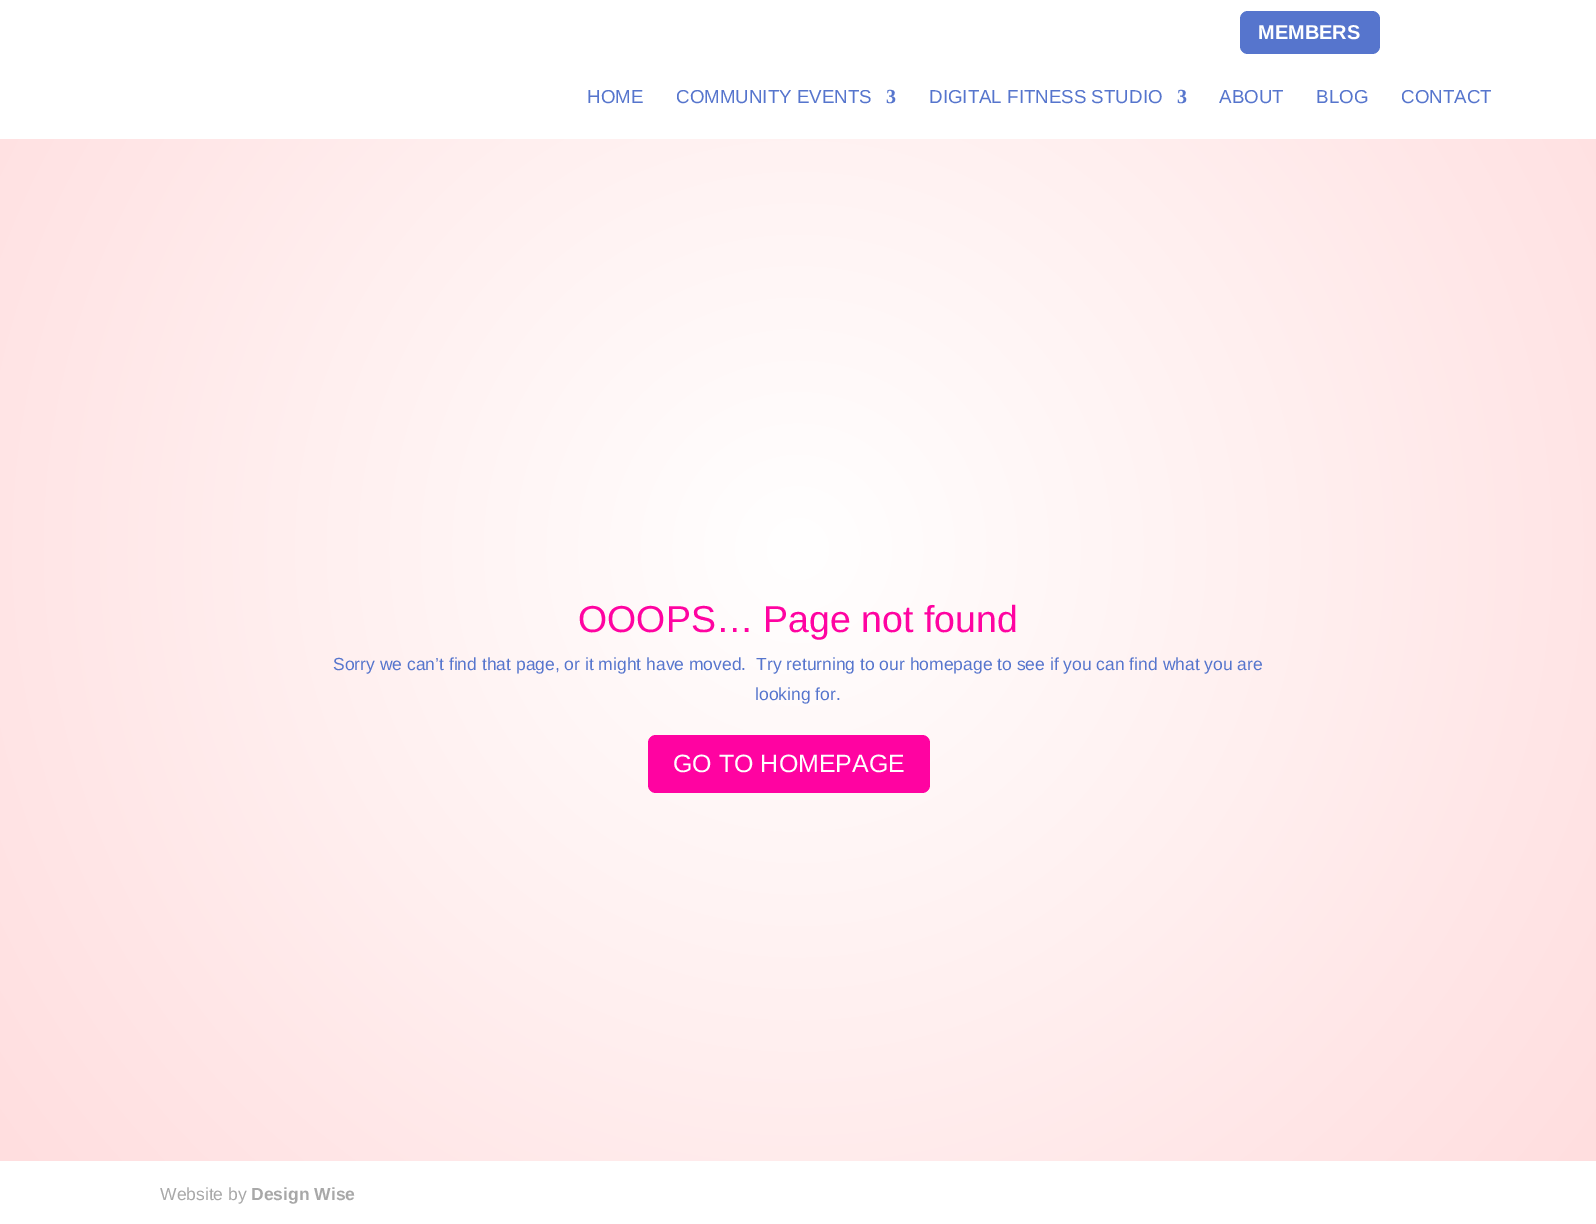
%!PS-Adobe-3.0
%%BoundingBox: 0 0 1596 1224
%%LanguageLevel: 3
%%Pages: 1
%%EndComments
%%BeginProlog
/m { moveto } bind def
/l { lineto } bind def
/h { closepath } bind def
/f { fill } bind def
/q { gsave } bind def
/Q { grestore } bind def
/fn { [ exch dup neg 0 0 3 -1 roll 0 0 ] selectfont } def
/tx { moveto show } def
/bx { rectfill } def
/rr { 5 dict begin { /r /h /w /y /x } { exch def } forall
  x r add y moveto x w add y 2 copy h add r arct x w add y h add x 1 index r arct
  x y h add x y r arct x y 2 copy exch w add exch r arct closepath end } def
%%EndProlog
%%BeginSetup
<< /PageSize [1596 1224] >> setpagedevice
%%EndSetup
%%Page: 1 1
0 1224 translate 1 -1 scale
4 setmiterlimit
1 setgray
0 0 1596 1224 bx
0.337 0.459 0.804 setrgbcolor
1240 11 140 43 8 rr f
/LiberationSans-Bold 20 fn
1 setgray
(MEMBERS) 1258 39 tx
/LiberationSans-Regular 18.75 fn
0.337 0.459 0.804 setrgbcolor
(HOME) 587 103 tx
(COMMUNITY EVENTS) 676 103 tx
/LiberationSerif-Bold 20 fn
(3) 886 103 tx
/LiberationSans-Regular 18.75 fn
(DIGITAL FITNESS STUDIO) 929 103 tx
/LiberationSerif-Bold 20 fn
(3) 1177 103 tx
/LiberationSans-Regular 18.75 fn
(ABOUT) 1219 103 tx
(BLOG) 1316 103 tx
(CONTACT) 1401 103 tx
q 0 139 m 1596 139 l 1596 1161 l 0 1161 l h clip newpath 798 549 translate 1006 1006 scale
<< /ShadingType 3 /ColorSpace /DeviceRGB /Coords [0 0 0 0 0 1] /Extend [true true] /Function << /FunctionType 2 /Domain [0 1] /C0 [1 1 1] /C1 [1 0.871 0.875] /N 1 >> >> shfill Q
/LiberationSans-Regular 37.5 fn
1 0.012 0.631 setrgbcolor
(OOOPS… Page not found) 578 632 tx
/LiberationSans-Regular 17.5 fn
0.337 0.459 0.804 setrgbcolor
(Sorry we can’t find that page, or it might have moved.  Try returning to our homepage to see if you can find what you are) 333 670 tx
(looking for.) 755 700 tx
1 0.012 0.631 setrgbcolor
648 735 282 58 8 rr f
/LiberationSans-Regular 25 fn
1 setgray
(GO TO HOMEPAGE) 673 772 tx
/LiberationSans-Regular 17.5 fn
0.659 setgray
(Website by) 160 1200 tx
/LiberationSans-Bold 17.5 fn
(Design Wise) 251 1200 tx
showpage
%%EOF
